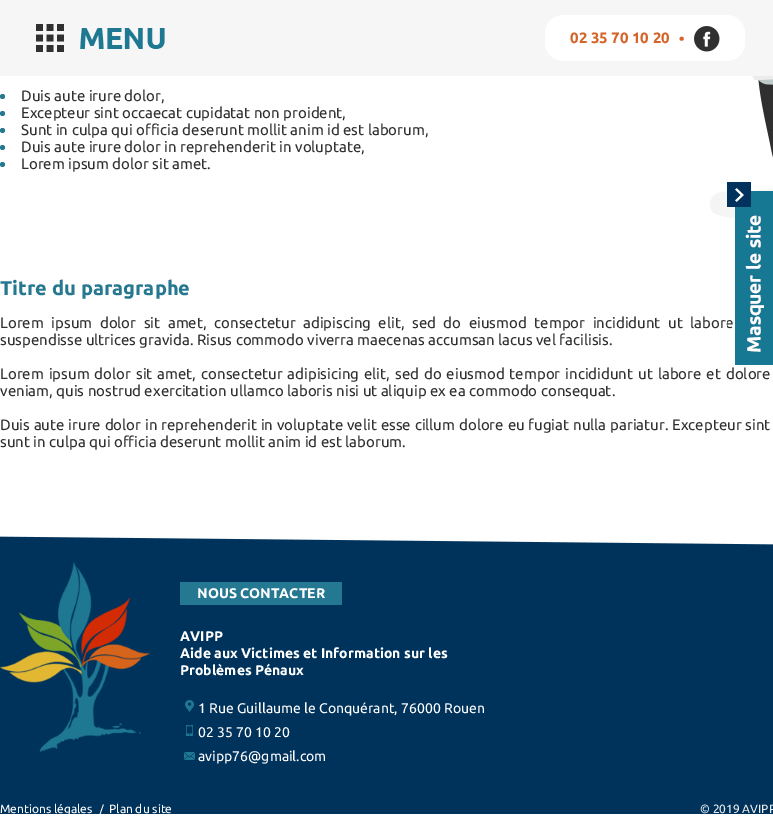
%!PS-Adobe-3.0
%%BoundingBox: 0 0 773 827
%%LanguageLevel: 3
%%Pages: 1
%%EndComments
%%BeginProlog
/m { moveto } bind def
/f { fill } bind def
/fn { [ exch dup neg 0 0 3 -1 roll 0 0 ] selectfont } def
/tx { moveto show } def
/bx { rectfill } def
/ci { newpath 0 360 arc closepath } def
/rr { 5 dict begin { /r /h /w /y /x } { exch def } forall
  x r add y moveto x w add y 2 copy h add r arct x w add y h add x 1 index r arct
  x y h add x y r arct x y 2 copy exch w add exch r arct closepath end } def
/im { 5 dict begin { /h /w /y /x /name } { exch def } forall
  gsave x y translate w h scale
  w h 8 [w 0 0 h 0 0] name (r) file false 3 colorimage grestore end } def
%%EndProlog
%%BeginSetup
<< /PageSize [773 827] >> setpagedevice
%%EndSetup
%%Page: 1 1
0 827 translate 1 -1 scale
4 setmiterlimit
1 setgray
0 0 773 827 bx
0.965 setgray
0 0 773 76 bx
(image0.raw) 36 24 129 28 im
1 setgray
545 15 200 46 18 rr f
/Ubuntu-Bold 15 fn
0.831 0.392 0.157 setrgbcolor
(02 35 70 10 20) 570 43 tx
(•) 679 44 tx
(image1.raw) 694 26 26 26 im
0.149 0.471 0.569 setrgbcolor
2.5 96.5 2.5 ci f
/Ubuntu-Regular 15 fn
0.188 setgray
(Duis aute irure dolor,) 21 101 tx
0.149 0.471 0.569 setrgbcolor
2.5 113.5 2.5 ci f
0.188 setgray
(Excepteur sint occaecat cupidatat non proident,) 21 118 tx
0.149 0.471 0.569 setrgbcolor
2.5 130.5 2.5 ci f
0.188 setgray
(Sunt in culpa qui officia deserunt mollit anim id est laborum,) 21 135 tx
0.149 0.471 0.569 setrgbcolor
2.5 147.5 2.5 ci f
0.188 setgray
(Duis aute irure dolor in reprehenderit in voluptate,) 21 152 tx
0.149 0.471 0.569 setrgbcolor
2.5 164.5 2.5 ci f
0.188 setgray
(Lorem ipsum dolor sit amet.) 21 169 tx
(image2.raw) 710 76 63 142 im
/Ubuntu-Bold 20 fn
0.149 0.471 0.569 setrgbcolor
(Titre du paragraphe) 0 295 tx
/Ubuntu-Regular 15 fn
0.188 setgray
0 328 m 4.1 0 32 (Lorem ipsum dolor sit amet, consectetur adipiscing elit, sed do eiusmod tempor incididunt ut labore) widthshow
(suspendisse ultrices gravida. Risus commodo viverra maecenas accumsan lacus vel facilisis.) 0 345 tx
0 379 m 1.5 0 32 (Lorem ipsum dolor sit amet, consectetur adipisicing elit, sed do eiusmod tempor incididunt ut labore et dolore) widthshow
(veniam, quis nostrud exercitation ullamco laboris nisi ut aliquip ex ea commodo consequat.) 0 396 tx
0 430 m 0.4 0 32 (Duis aute irure dolor in reprehenderit in voluptate velit esse cillum dolore eu fugiat nulla pariatur. Excepteur sint) widthshow
(sunt in culpa qui officia deserunt mollit anim id est laborum.) 0 447 tx
(image3.raw) 727 182 46 183 im
(image4.raw) 0 536 773 278 im
(image5.raw) 0 562 150 190 im
0.145 0.471 0.569 setrgbcolor
180 582 162 23 bx
/Ubuntu-Bold 14 fn
1 setgray
(NOUS CONTACTER) 197 598 tx
(AVIPP) 180 641 tx
(Aide aux Victimes et Information sur les) 180 658 tx
(Problèmes Pénaux) 180 675 tx
(image6.raw) 185 700 9 12 im
/Ubuntu-Regular 14 fn
(1 Rue Guillaume le Conquérant, 76000 Rouen) 198 713 tx
(image7.raw) 186 725 7 11 im
(02 35 70 10 20) 198 737 tx
(image8.raw) 184 752 11 8 im
(avipp76@gmail.com) 198 761 tx
/Ubuntu-Regular 12 fn
(Mentions légales) 0 813 tx
(/) 99 814 tx
(Plan du site) 109 813 tx
0.929 setgray
(© 2019 AVIPP) 700 813 tx
showpage
%%EOF
